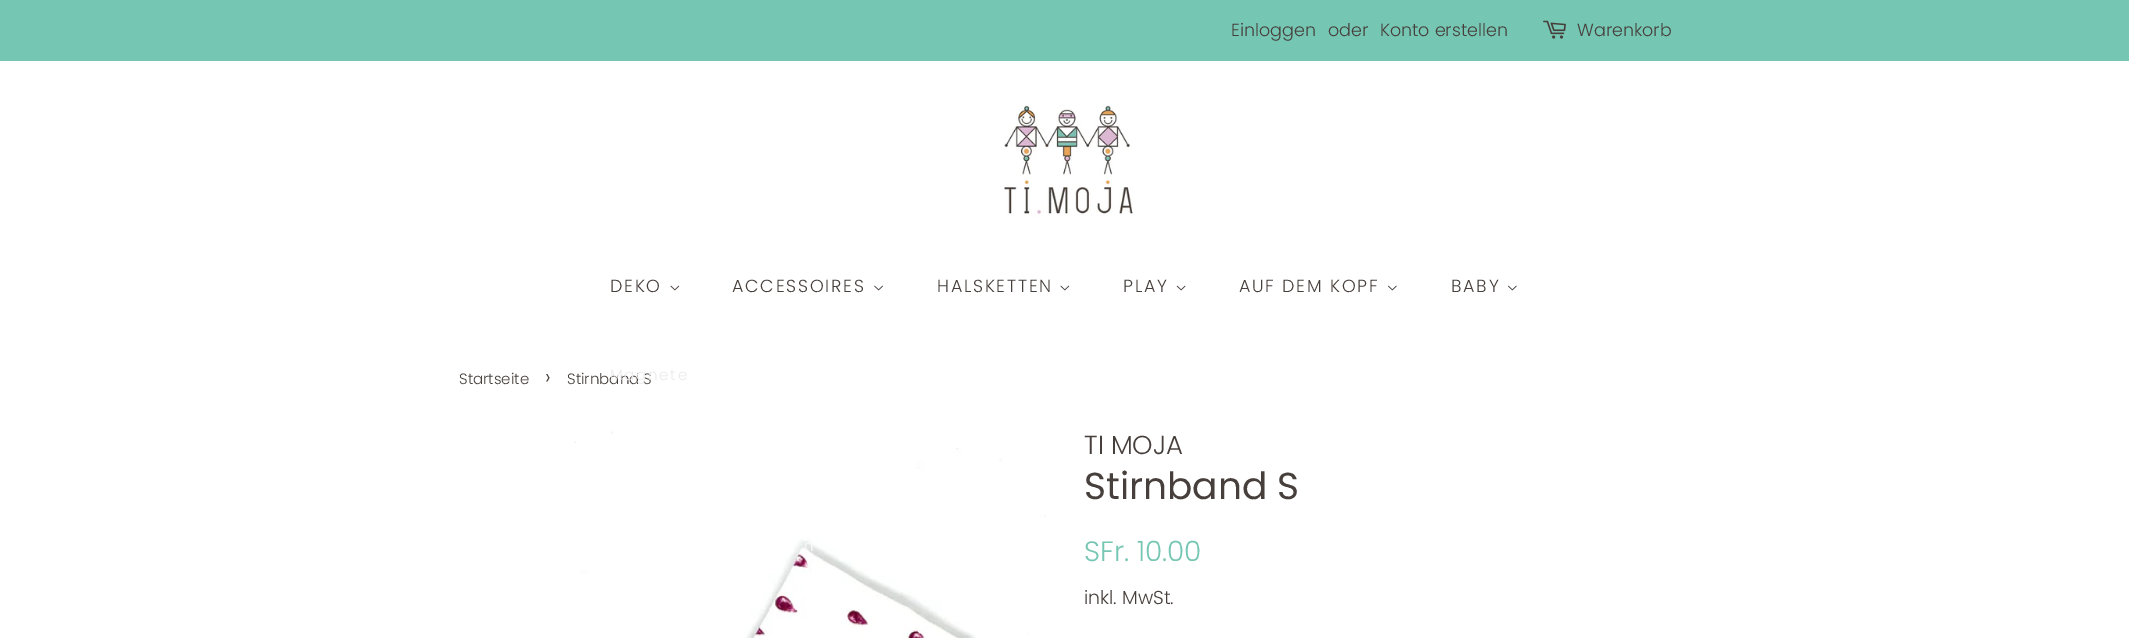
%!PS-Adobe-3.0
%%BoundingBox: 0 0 2129 638
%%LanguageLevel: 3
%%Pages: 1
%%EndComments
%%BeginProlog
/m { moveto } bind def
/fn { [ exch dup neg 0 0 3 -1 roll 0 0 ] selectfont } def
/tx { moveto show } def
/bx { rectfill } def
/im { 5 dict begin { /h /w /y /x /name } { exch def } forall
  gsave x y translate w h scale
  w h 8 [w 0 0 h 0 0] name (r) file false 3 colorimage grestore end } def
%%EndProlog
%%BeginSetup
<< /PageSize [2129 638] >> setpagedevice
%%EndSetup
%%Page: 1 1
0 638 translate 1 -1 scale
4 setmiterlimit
1 setgray
0 0 2129 638 bx
0.459 0.776 0.702 setrgbcolor
0 0 2129 61 bx
/Poppins-Light 17.5 fn
0.278 0.247 0.231 setrgbcolor
(Einloggen) 1231 36 tx
(oder) 1328 36 tx
(Konto erstellen) 1380 36 tx
(image0.raw) 1543 20 23 19 im
(Warenkorb) 1577 36 tx
(image1.raw) 1004 105 129 113 im
610 292 m 1.75 0 (DEKO) ashow
(image2.raw) 670 285 10 6 im
/Poppins-Light 15 fn
(Stirnband S) 567 384 tx
0.925 0.922 0.922 setrgbcolor
610 380 m 1.75 0 (Magnete) ashow
(image6.raw) 574 431 472 207 im
0.992 setgray
804 551 m 1.75 0 (n) ashow
/Poppins-Light 17.5 fn
0.278 0.247 0.231 setrgbcolor
732 292 m 1.75 0 (ACCESSOIRES) ashow
(image3.raw) 874 285 9 6 im
937 292 m 1.75 0 (HALSKETTEN) ashow
(image2.raw) 1060 285 10 6 im
1123 292 m 1.75 0 (PLAY) ashow
(image4.raw) 1176 285 10 6 im
1239 292 m 1.75 0 (AUF DEM KOPF) ashow
(image5.raw) 1388 285 9 6 im
1451 292 m 1.75 0 (BABY) ashow
(image5.raw) 1508 285 9 6 im
/Poppins-Light 15 fn
(Startseite) 459 384 tx
/Poppins-Light 21 fn
(›) 545 384 tx
/Poppins-Light 26 fn
(TI MOJA) 1084 454 tx
/Poppins-Regular 37.5 fn
(Stirnband S) 1084 499 tx
/Poppins-Light 28 fn
0.459 0.776 0.702 setrgbcolor
(SFr. 10.00) 1084 561 tx
/Poppins-Light 18.75 fn
0.278 0.247 0.231 setrgbcolor
(inkl. MwSt.) 1084 604 tx
showpage
%%EOF
